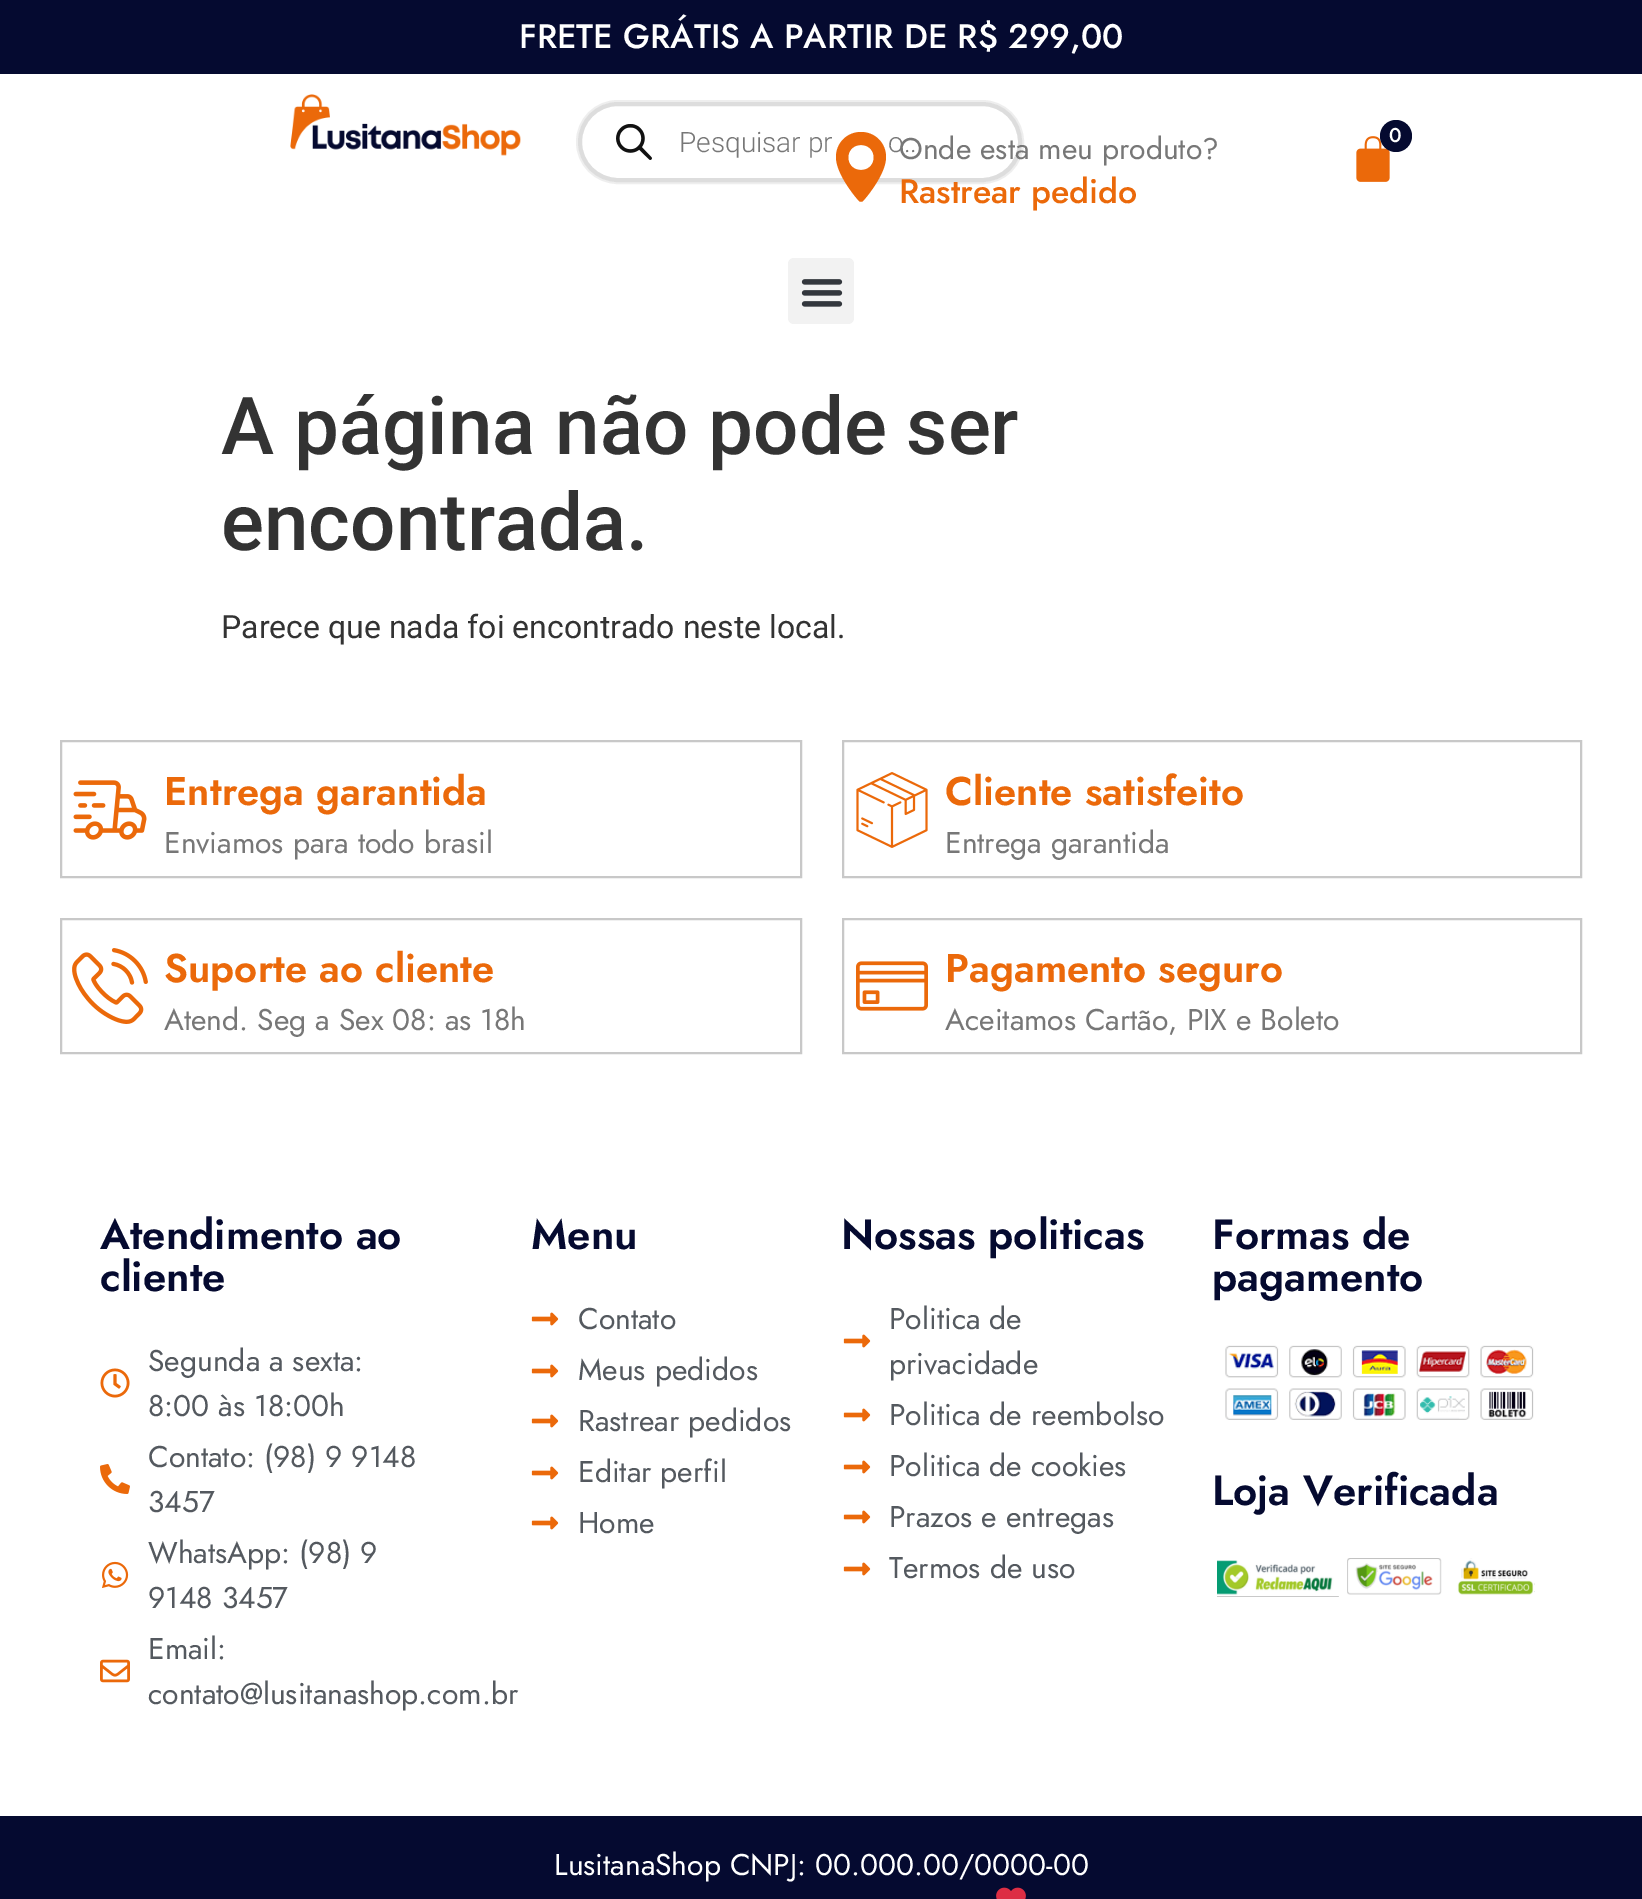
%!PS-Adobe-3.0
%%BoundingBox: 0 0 1642 1899
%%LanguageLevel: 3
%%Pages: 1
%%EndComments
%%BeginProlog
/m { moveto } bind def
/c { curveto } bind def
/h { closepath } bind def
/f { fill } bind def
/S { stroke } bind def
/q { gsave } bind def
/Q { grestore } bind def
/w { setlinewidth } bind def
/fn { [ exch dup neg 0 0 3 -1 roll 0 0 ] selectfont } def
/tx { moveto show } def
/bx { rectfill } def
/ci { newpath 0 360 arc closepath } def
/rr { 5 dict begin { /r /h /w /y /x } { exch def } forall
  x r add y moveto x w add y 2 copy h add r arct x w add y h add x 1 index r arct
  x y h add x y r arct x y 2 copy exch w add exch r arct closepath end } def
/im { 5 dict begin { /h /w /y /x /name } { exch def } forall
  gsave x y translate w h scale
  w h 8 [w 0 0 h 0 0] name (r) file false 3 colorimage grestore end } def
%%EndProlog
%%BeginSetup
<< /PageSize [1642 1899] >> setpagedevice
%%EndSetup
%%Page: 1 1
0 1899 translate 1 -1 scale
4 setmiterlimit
1 setgray
0 0 1642 1899 bx
0.02 0.039 0.188 setrgbcolor
0 0 1642 74 bx
/Jost-Medium 34 fn
1 setgray
(FRETE GRÁTIS A PARTIR DE R$ 299,00) 519 48 tx
(image0.raw) 290 94 231 62 im
0.933 setgray
2 w
577 101 446 82 41 rr S
1 setgray
580 104 440 76 38 rr q f Q
0.867 setgray
4 w
S
(image1.raw) 616 124 36 36 im
/Roboto-Light 28 fn
0.467 setgray
(Pesquisar pr) 679 152 tx
(o...) 888 152 tx
0.922 0.412 0.039 setrgbcolor
861 132 m 847 132 836 143 836 157 c 836 175 858 200 859 201 c 860 202 862 202 863 201 c 864 200 886 175 886 157 c 886 143 875 132 861 132 c h 861 170 m 844 170 844 145 861 145 c 878 145 878 170 861 170 c h f
/Jost-Regular 30 fn
0.467 setgray
(Onde esta meu produto?) 899 159 tx
/Jost-Medium 34 fn
0.922 0.412 0.039 setrgbcolor
(Rastrear pedido) 899 203 tx
(image2.raw) 1356 136 34 46 im
0.02 0.039 0.188 setrgbcolor
1396 136 16 ci f
/Jost-Medium 20 fn
1 setgray
(0) 1389 142 tx
0.949 setgray
788 258 66 66 6 rr f
(image3.raw) 801 279 42 28 im
/Roboto-Medium 80 fn
0.2 setgray
(A página não pode ser) 221 454 tx
(encontrada.) 221 550 tx
/Roboto-Regular 32 fn
(Parece que nada foi encontrado neste local.) 221 638 tx
0.784 setgray
2 w
61 741 740 136 rectstroke
(image4.raw) 73 780 74 60 im
/Jost-SemiBold 40 fn
0.922 0.412 0.039 setrgbcolor
(Entrega garantida) 164 805 tx
/Jost-Regular 30 fn
0.467 setgray
(Enviamos para todo brasil) 164 853 tx
0.784 setgray
843 741 738 136 rectstroke
(image5.raw) 856 772 72 76 im
/Jost-SemiBold 40 fn
0.922 0.412 0.039 setrgbcolor
(Cliente satisfeito) 945 805 tx
/Jost-Regular 30 fn
0.467 setgray
(Entrega garantida) 945 853 tx
0.784 setgray
61 919 740 134 rectstroke
(image6.raw) 72 948 76 76 im
/Jost-SemiBold 40 fn
0.922 0.412 0.039 setrgbcolor
(Suporte ao cliente) 164 982 tx
/Jost-Regular 30 fn
0.467 setgray
(Atend. Seg a Sex 08: as 18h) 164 1030 tx
0.784 setgray
843 919 738 134 rectstroke
(image7.raw) 856 961 72 50 im
/Jost-SemiBold 40 fn
0.922 0.412 0.039 setrgbcolor
(Pagamento seguro) 945 982 tx
/Jost-Regular 30 fn
0.467 setgray
(Aceitamos Cartão, PIX e Boleto) 945 1030 tx
/Jost-SemiBold 42 fn
0.02 0.039 0.188 setrgbcolor
(Atendimento ao) 100 1249 tx
(cliente) 100 1291 tx
(image8.raw) 100 1368 30 30 im
/Jost-Regular 30 fn
0.329 0.349 0.373 setrgbcolor
(Segunda a sexta:) 148 1371 tx
(8:00 às 18:00h) 148 1416 tx
(image9.raw) 100 1464 30 30 im
(Contato: \(98\) 9 9148) 148 1467 tx
(3457) 148 1512 tx
(image10.raw) 102 1561 27 27 im
(WhatsApp: \(98\) 9) 148 1563 tx
(9148 3457) 148 1608 tx
(image11.raw) 100 1659 30 24 im
(Email:) 148 1659 tx
(contato@lusitanashop.com.br) 148 1704 tx
/Jost-SemiBold 42 fn
0.02 0.039 0.188 setrgbcolor
(Menu) 531 1249 tx
(image12.raw) 531 1312 28 14 im
/Jost-Regular 30 fn
0.329 0.349 0.373 setrgbcolor
(Contato) 578 1329 tx
(image12.raw) 531 1364 28 14 im
(Meus pedidos) 578 1380 tx
(image12.raw) 531 1414 28 14 im
(Rastrear pedidos) 578 1431 tx
(image12.raw) 531 1466 28 14 im
(Editar perfil) 578 1482 tx
(image12.raw) 531 1516 28 14 im
(Home) 578 1533 tx
/Jost-SemiBold 42 fn
0.02 0.039 0.188 setrgbcolor
(Nossas politicas) 841 1249 tx
(image12.raw) 843 1334 28 14 im
/Jost-Regular 30 fn
0.329 0.349 0.373 setrgbcolor
(Politica de) 889 1329 tx
(privacidade) 889 1374 tx
(image12.raw) 843 1408 28 14 im
(Politica de reembolso) 889 1425 tx
(image12.raw) 843 1460 28 14 im
(Politica de cookies) 889 1476 tx
(image12.raw) 843 1510 28 14 im
(Prazos e entregas) 889 1527 tx
(image12.raw) 843 1562 28 14 im
(Termos de uso) 889 1578 tx
/Jost-SemiBold 42 fn
0.02 0.039 0.188 setrgbcolor
(Formas de) 1212 1249 tx
(pagamento) 1212 1291 tx
(image13.raw) 1225 1345 309 75 im
(Loja Verificada) 1212 1505 tx
(image14.raw) 1217 1558 318 39 im
0 1816 1642 83 bx
/Jost-Regular 30 fn
1 setgray
(LusitanaShop CNPJ: 00.000.00/0000-00) 554 1875 tx
(image15.raw) 996 1887 30 12 im
showpage
%%EOF
